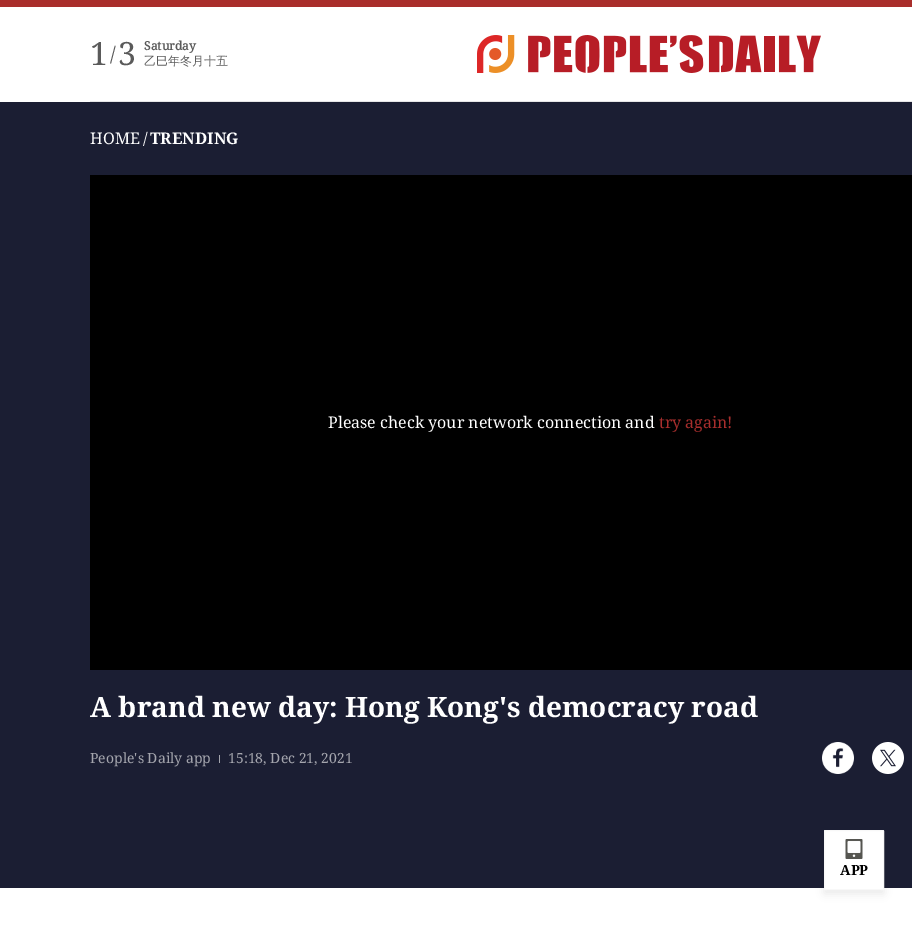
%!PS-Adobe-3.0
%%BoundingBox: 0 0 912 929
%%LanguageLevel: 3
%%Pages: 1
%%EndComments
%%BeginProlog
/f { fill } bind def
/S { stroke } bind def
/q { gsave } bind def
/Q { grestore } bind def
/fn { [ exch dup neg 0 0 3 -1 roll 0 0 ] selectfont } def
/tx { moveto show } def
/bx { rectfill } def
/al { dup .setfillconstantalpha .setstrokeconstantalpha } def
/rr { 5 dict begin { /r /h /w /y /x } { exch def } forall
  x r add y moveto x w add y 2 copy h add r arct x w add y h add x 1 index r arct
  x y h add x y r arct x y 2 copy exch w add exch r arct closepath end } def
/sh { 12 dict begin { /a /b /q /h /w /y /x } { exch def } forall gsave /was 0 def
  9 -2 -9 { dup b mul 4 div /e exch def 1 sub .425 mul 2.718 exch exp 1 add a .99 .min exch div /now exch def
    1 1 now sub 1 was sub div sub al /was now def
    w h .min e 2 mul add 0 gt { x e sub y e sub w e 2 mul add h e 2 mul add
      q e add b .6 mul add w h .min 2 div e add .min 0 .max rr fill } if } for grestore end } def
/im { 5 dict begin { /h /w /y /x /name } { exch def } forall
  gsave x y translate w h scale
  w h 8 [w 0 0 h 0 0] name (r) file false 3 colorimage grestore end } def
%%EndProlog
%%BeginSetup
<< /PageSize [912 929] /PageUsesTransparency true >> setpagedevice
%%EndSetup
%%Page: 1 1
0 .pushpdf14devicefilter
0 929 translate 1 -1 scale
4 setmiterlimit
1 setgray
0 0 912 929 bx
0.663 0.18 0.169 setrgbcolor
0 0 912 7 bx
0.902 setgray
90 101 822 1 bx
/DroidSerif-Regular 32 fn
0.353 setgray
(1) 90 65 tx
/DroidSerif-Regular 20 fn
(/) 110 61 tx
/DroidSerif-Regular 32 fn
(3) 118 65 tx
/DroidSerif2-Bold 12 fn
(Saturday) 144 50 tx
/WenQuanYiZenHei-Medium 12 fn
(乙巳年冬月十五) 144 65 tx
(image0.raw) 477 35 344 38 im
0.106 0.118 0.2 setrgbcolor
0 102 912 786 bx
/DroidSerif-Regular 16 fn
1 setgray
(HOME) 90 144 tx
(/) 143 144 tx
/DroidSerif-Bold 16 fn
(TRENDING) 150 144 tx
0 setgray
90 175 822 495 bx
/DroidSerif-Regular 16 fn
1 setgray
(Please check your network connection and) 328 428 tx
0.659 0.18 0.176 setrgbcolor
(try again!) 659 428 tx
/DroidSerif-Bold 28 fn
1 setgray
(A brand new day: Hong Kong's democracy road) 90 717 tx
/DroidSerif-Regular 14 fn
0.643 0.647 0.678 setrgbcolor
(People's Daily app) 90 763 tx
219 755 1 8 bx
(15:18, Dec 21, 2021) 228 763 tx
(image1.raw) 822 742 32 32 im
(image2.raw) 872 742 32 32 im
0 setgray
824 834 60 60 1 4 0.08 sh
1 setgray
824.5 830.5 59 59 0.5 rr q f Q
0.973 setgray
S
(image3.raw) 845 839 18 20 im
/DroidSerif-Bold 14 fn
0 setgray
(APP) 840 875 tx
.poppdf14devicefilter showpage
%%EOF
